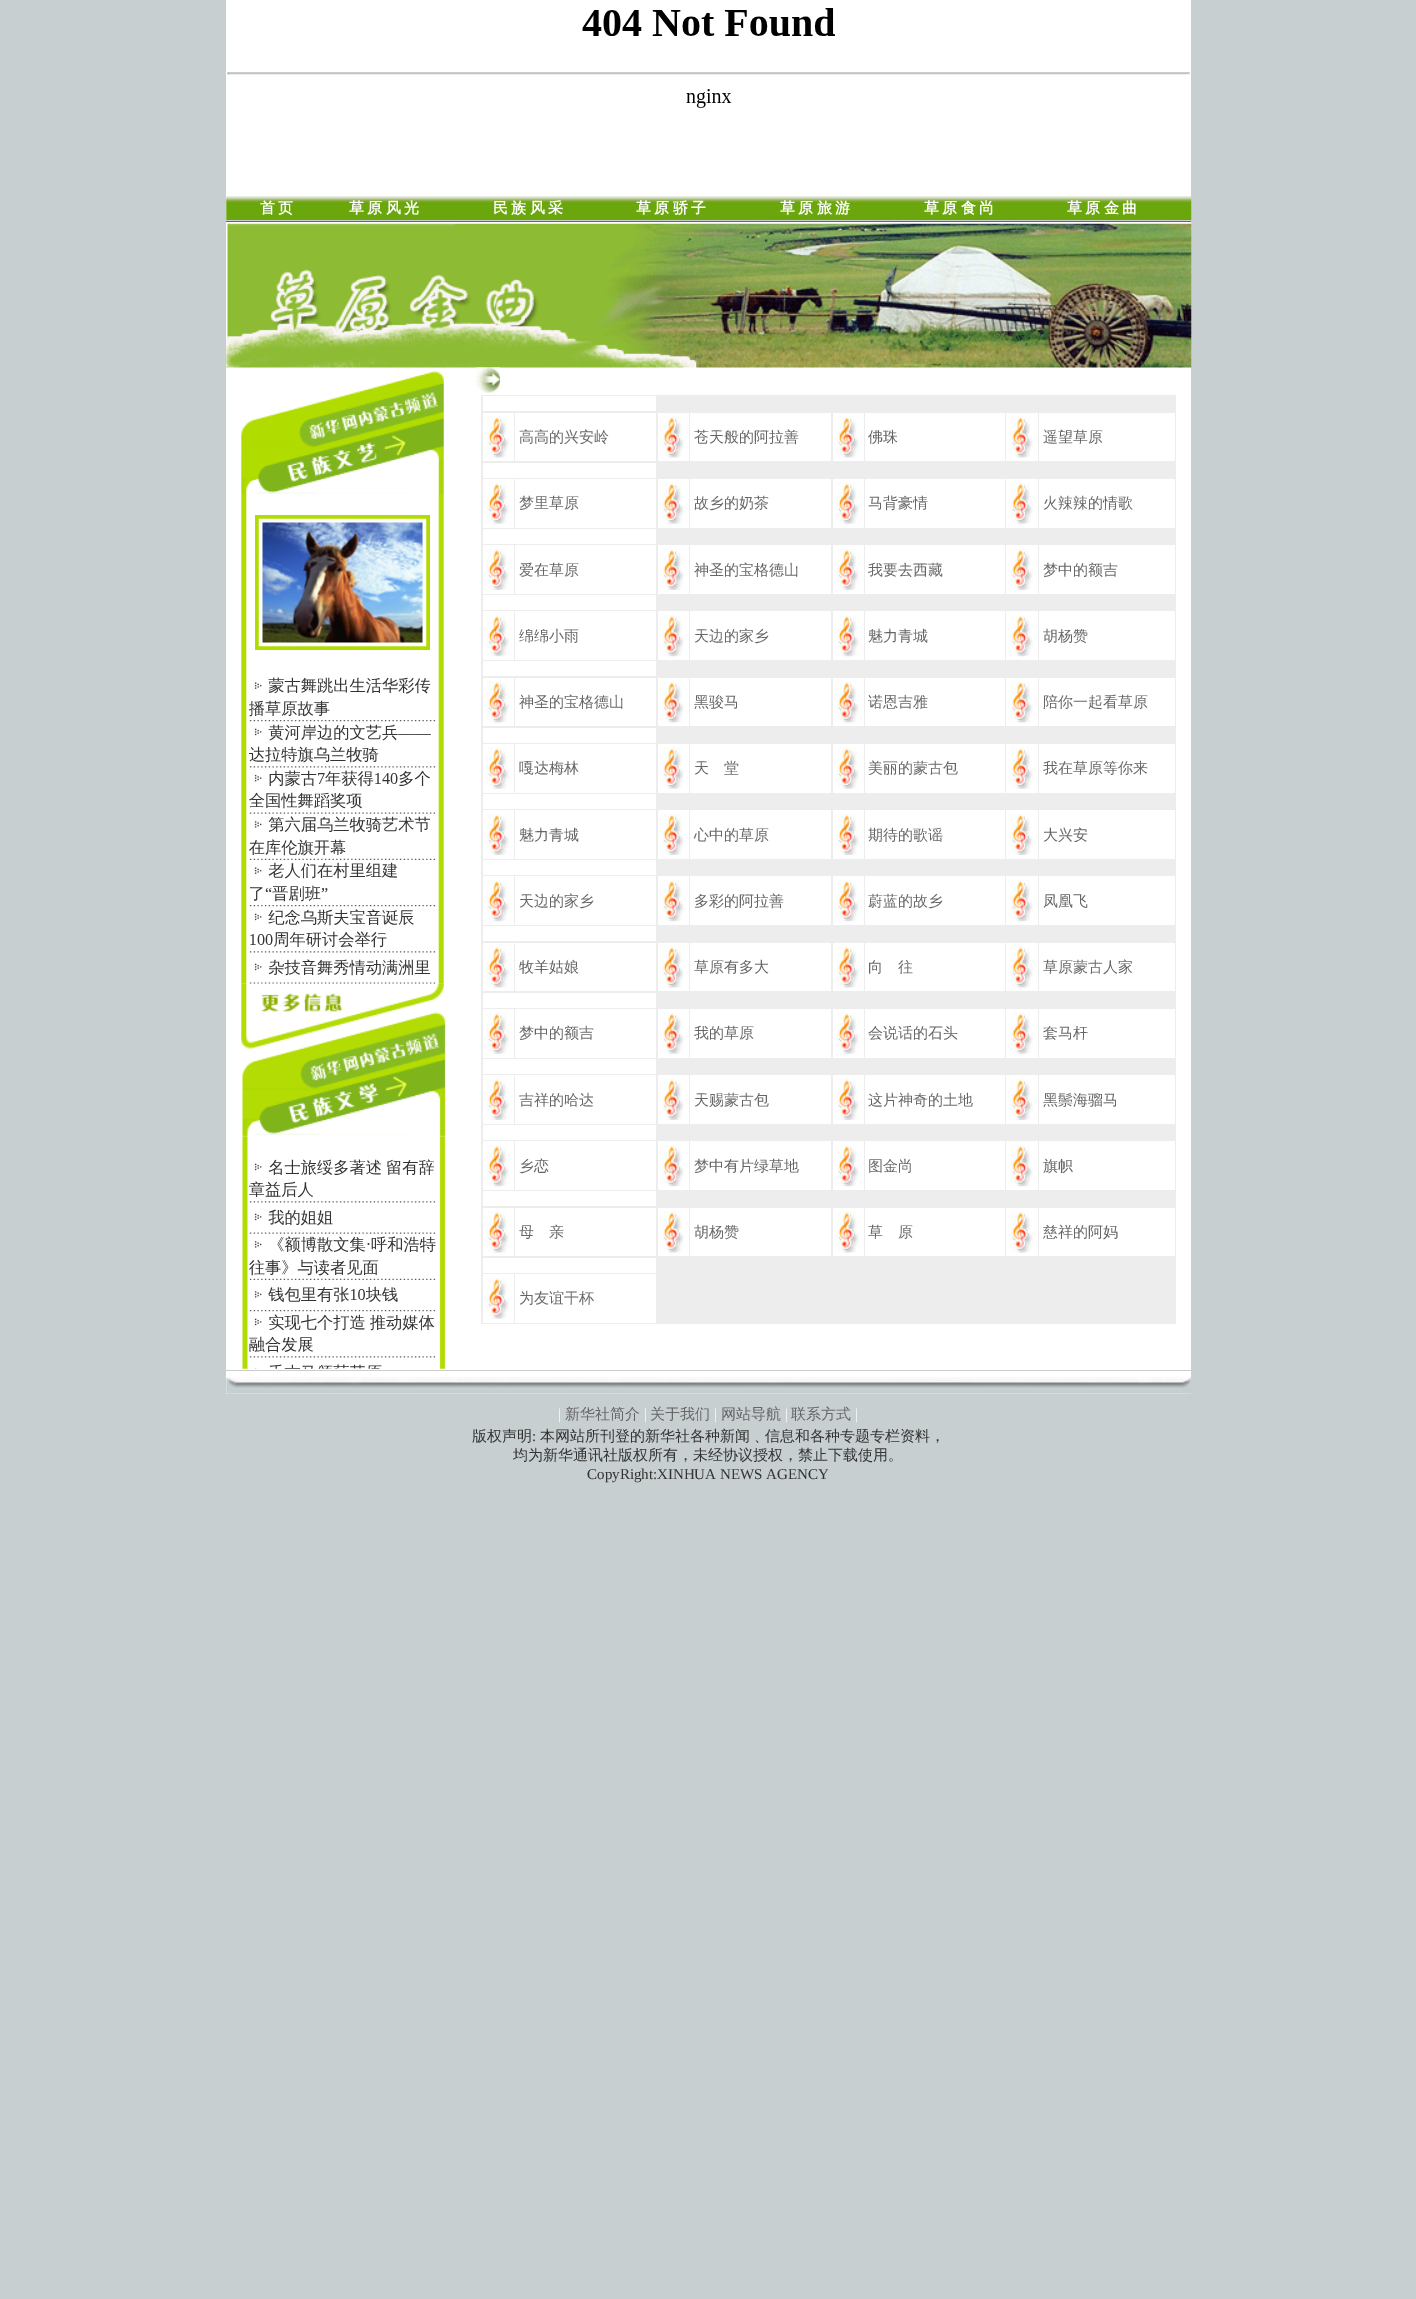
%!PS-Adobe-3.0
%%BoundingBox: 0 0 1416 2299
%%LanguageLevel: 3
%%Pages: 1
%%EndComments
%%BeginProlog
/m { moveto } bind def
/fn { [ exch dup neg 0 0 3 -1 roll 0 0 ] selectfont } def
/tx { moveto show } def
/bx { rectfill } def
/im { 5 dict begin { /h /w /y /x /name } { exch def } forall
  gsave x y translate w h scale
  w h 8 [w 0 0 h 0 0] name (r) file false 3 colorimage grestore end } def
%%EndProlog
%%BeginSetup
<< /PageSize [1416 2299] >> setpagedevice
%%EndSetup
%%Page: 1 1
0 2299 translate 1 -1 scale
4 setmiterlimit
0.78 0.812 0.82 setrgbcolor
0 0 1416 2299 bx
1 setgray
226 0 965 1394 bx
(image0.raw) 227 8 963 100 im
(image1.raw) 226 196 966 24 im
/WenQuanYiZenHei-Bold 15 fn
260 213 m -1 0 32 (首 页) widthshow
349 213 m -1 0 32 (草 原 风 光) widthshow
493 213 m -1 0 32 (民 族 风 采) widthshow
636 213 m -1 0 32 (草 原 骄 子) widthshow
780 213 m -1 0 32 (草 原 旅 游) widthshow
924 213 m -1 0 32 (草 原 食 尚) widthshow
1067 213 m -1 0 32 (草 原 金 曲) widthshow
0.8 setgray
226 220 965 1 bx
0.4 setgray
226 221 965 1 bx
(image2.raw) 226 222 966 146 im
(image3.raw) 241 371 205 998 im
(image4.raw) 476 367 24 26 im
0.929 setgray
481 395 695 929 bx
1 setgray
483 396 173 15 bx
483 413 31 48 bx
(image5.raw) 486 416 23 42 im
515 413 141 48 bx
/WenQuanYiZenHei-Medium 15 fn
0.4 setgray
(高高的兴安岭) 519 442 tx
1 setgray
658 413 31 48 bx
(image5.raw) 661 416 23 42 im
690 413 141 48 bx
0.4 setgray
(苍天般的阿拉善) 694 442 tx
1 setgray
833 413 31 48 bx
(image5.raw) 836 416 23 42 im
865 413 140 48 bx
0.4 setgray
(佛珠) 868 442 tx
1 setgray
1006 413 32 48 bx
(image6.raw) 1010 416 23 42 im
1039 413 136 48 bx
0.4 setgray
(遥望草原) 1043 442 tx
1 setgray
483 463 173 15 bx
483 479 31 49 bx
(image7.raw) 486 482 23 42 im
515 479 141 49 bx
0.4 setgray
(梦里草原) 519 508 tx
1 setgray
658 479 31 49 bx
(image7.raw) 661 482 23 42 im
690 479 141 49 bx
0.4 setgray
(故乡的奶茶) 694 508 tx
1 setgray
833 479 31 49 bx
(image7.raw) 836 482 23 42 im
865 479 140 49 bx
0.4 setgray
(马背豪情) 868 508 tx
1 setgray
1006 479 32 49 bx
(image8.raw) 1010 482 23 42 im
1039 479 136 49 bx
0.4 setgray
(火辣辣的情歌) 1043 508 tx
1 setgray
483 529 173 15 bx
483 545 31 49 bx
(image9.raw) 486 549 23 41 im
515 545 141 49 bx
0.4 setgray
(爱在草原) 519 575 tx
1 setgray
658 545 31 49 bx
(image9.raw) 661 549 23 41 im
690 545 141 49 bx
0.4 setgray
(神圣的宝格德山) 694 575 tx
1 setgray
833 545 31 49 bx
(image9.raw) 836 549 23 41 im
865 545 140 49 bx
0.4 setgray
(我要去西藏) 868 575 tx
1 setgray
1006 545 32 49 bx
(image10.raw) 1010 549 23 41 im
1039 545 136 49 bx
0.4 setgray
(梦中的额吉) 1043 575 tx
1 setgray
483 595 173 15 bx
483 611 31 49 bx
(image11.raw) 486 615 23 42 im
515 611 141 49 bx
0.4 setgray
(绵绵小雨) 519 641 tx
1 setgray
658 611 31 49 bx
(image11.raw) 661 615 23 42 im
690 611 141 49 bx
0.4 setgray
(天边的家乡) 694 641 tx
1 setgray
833 611 31 49 bx
(image11.raw) 836 615 23 42 im
865 611 140 49 bx
0.4 setgray
(魅力青城) 868 641 tx
1 setgray
1006 611 32 49 bx
(image12.raw) 1010 615 23 42 im
1039 611 136 49 bx
0.4 setgray
(胡杨赞) 1043 641 tx
1 setgray
483 661 173 15 bx
483 678 31 48 bx
(image5.raw) 486 681 23 42 im
515 678 141 48 bx
0.4 setgray
(神圣的宝格德山) 519 707 tx
1 setgray
658 678 31 48 bx
(image5.raw) 661 681 23 42 im
690 678 141 48 bx
0.4 setgray
(黑骏马) 694 707 tx
1 setgray
833 678 31 48 bx
(image5.raw) 836 681 23 42 im
865 678 140 48 bx
0.4 setgray
(诺恩吉雅) 868 707 tx
1 setgray
1006 678 32 48 bx
(image6.raw) 1010 681 23 42 im
1039 678 136 48 bx
0.4 setgray
(陪你一起看草原) 1043 707 tx
1 setgray
483 728 173 15 bx
483 744 31 49 bx
(image7.raw) 486 747 23 42 im
515 744 141 49 bx
0.4 setgray
(嘎达梅林) 519 773 tx
1 setgray
658 744 31 49 bx
(image7.raw) 661 747 23 42 im
690 744 141 49 bx
0.4 setgray
(天　堂) 694 773 tx
1 setgray
833 744 31 49 bx
(image7.raw) 836 747 23 42 im
865 744 140 49 bx
0.4 setgray
(美丽的蒙古包) 868 773 tx
1 setgray
1006 744 32 49 bx
(image8.raw) 1010 747 23 42 im
1039 744 136 49 bx
0.4 setgray
(我在草原等你来) 1043 773 tx
1 setgray
483 794 173 15 bx
483 810 31 49 bx
(image9.raw) 486 814 23 41 im
515 810 141 49 bx
0.4 setgray
(魅力青城) 519 840 tx
1 setgray
658 810 31 49 bx
(image9.raw) 661 814 23 41 im
690 810 141 49 bx
0.4 setgray
(心中的草原) 694 840 tx
1 setgray
833 810 31 49 bx
(image9.raw) 836 814 23 41 im
865 810 140 49 bx
0.4 setgray
(期待的歌谣) 868 840 tx
1 setgray
1006 810 32 49 bx
(image10.raw) 1010 814 23 41 im
1039 810 136 49 bx
0.4 setgray
(大兴安) 1043 840 tx
1 setgray
483 860 173 15 bx
483 876 31 49 bx
(image11.raw) 486 880 23 42 im
515 876 141 49 bx
0.4 setgray
(天边的家乡) 519 906 tx
1 setgray
658 876 31 49 bx
(image11.raw) 661 880 23 42 im
690 876 141 49 bx
0.4 setgray
(多彩的阿拉善) 694 906 tx
1 setgray
833 876 31 49 bx
(image11.raw) 836 880 23 42 im
865 876 140 49 bx
0.4 setgray
(蔚蓝的故乡) 868 906 tx
1 setgray
1006 876 32 49 bx
(image12.raw) 1010 880 23 42 im
1039 876 136 49 bx
0.4 setgray
(凤凰飞) 1043 906 tx
1 setgray
483 926 173 15 bx
483 943 31 48 bx
(image5.raw) 486 946 23 42 im
515 943 141 48 bx
0.4 setgray
(牧羊姑娘) 519 972 tx
1 setgray
658 943 31 48 bx
(image5.raw) 661 946 23 42 im
690 943 141 48 bx
0.4 setgray
(草原有多大) 694 972 tx
1 setgray
833 943 31 48 bx
(image5.raw) 836 946 23 42 im
865 943 140 48 bx
0.4 setgray
(向　往) 868 972 tx
1 setgray
1006 943 32 48 bx
(image6.raw) 1010 946 23 42 im
1039 943 136 48 bx
0.4 setgray
(草原蒙古人家) 1043 972 tx
1 setgray
483 993 173 15 bx
483 1009 31 49 bx
(image7.raw) 486 1012 23 42 im
515 1009 141 49 bx
0.4 setgray
(梦中的额吉) 519 1038 tx
1 setgray
658 1009 31 49 bx
(image7.raw) 661 1012 23 42 im
690 1009 141 49 bx
0.4 setgray
(我的草原) 694 1038 tx
1 setgray
833 1009 31 49 bx
(image7.raw) 836 1012 23 42 im
865 1009 140 49 bx
0.4 setgray
(会说话的石头) 868 1038 tx
1 setgray
1006 1009 32 49 bx
(image8.raw) 1010 1012 23 42 im
1039 1009 136 49 bx
0.4 setgray
(套马杆) 1043 1038 tx
1 setgray
483 1059 173 15 bx
483 1075 31 49 bx
(image9.raw) 486 1079 23 41 im
515 1075 141 49 bx
0.4 setgray
(吉祥的哈达) 519 1105 tx
1 setgray
658 1075 31 49 bx
(image9.raw) 661 1079 23 41 im
690 1075 141 49 bx
0.4 setgray
(天赐蒙古包) 694 1105 tx
1 setgray
833 1075 31 49 bx
(image9.raw) 836 1079 23 41 im
865 1075 140 49 bx
0.4 setgray
(这片神奇的土地) 868 1105 tx
1 setgray
1006 1075 32 49 bx
(image10.raw) 1010 1079 23 41 im
1039 1075 136 49 bx
0.4 setgray
(黑鬃海骝马) 1043 1105 tx
1 setgray
483 1125 173 15 bx
483 1141 31 49 bx
(image13.raw) 486 1145 23 42 im
515 1141 141 49 bx
0.4 setgray
(乡恋) 519 1171 tx
1 setgray
658 1141 31 49 bx
(image13.raw) 661 1145 23 42 im
690 1141 141 49 bx
0.4 setgray
(梦中有片绿草地) 694 1171 tx
1 setgray
833 1141 31 49 bx
(image13.raw) 836 1145 23 42 im
865 1141 140 49 bx
0.4 setgray
(图金尚) 868 1171 tx
1 setgray
1006 1141 32 49 bx
(image14.raw) 1010 1145 23 42 im
1039 1141 136 49 bx
0.4 setgray
(旗帜) 1043 1171 tx
1 setgray
483 1191 173 15 bx
483 1208 31 48 bx
(image5.raw) 486 1211 23 42 im
515 1208 141 48 bx
0.4 setgray
(母　亲) 519 1237 tx
1 setgray
658 1208 31 48 bx
(image5.raw) 661 1211 23 42 im
690 1208 141 48 bx
0.4 setgray
(胡杨赞) 694 1237 tx
1 setgray
833 1208 31 48 bx
(image5.raw) 836 1211 23 42 im
865 1208 140 48 bx
0.4 setgray
(草　原) 868 1237 tx
1 setgray
1006 1208 32 48 bx
(image6.raw) 1010 1211 23 42 im
1039 1208 136 48 bx
0.4 setgray
(慈祥的阿妈) 1043 1237 tx
1 setgray
483 1258 173 15 bx
483 1274 31 49 bx
(image7.raw) 486 1277 23 42 im
515 1274 141 49 bx
0.4 setgray
(为友谊干杯) 519 1303 tx
0.8 setgray
226 1370 965 1 bx
(image15.raw) 226 1377 966 17 im
/LiberationSerif-Regular 15 fn
1 setgray
(|) 558 1419 tx
/WenQuanYiZenHei-Medium 15 fn
0.4 setgray
(新华社简介) 565 1419 tx
/LiberationSerif-Regular 15 fn
1 setgray
(|) 644 1419 tx
/WenQuanYiZenHei-Medium 15 fn
0.4 setgray
(关于我们) 650 1419 tx
/LiberationSerif-Regular 15 fn
1 setgray
(|) 714 1419 tx
/WenQuanYiZenHei-Medium 15 fn
0.4 setgray
(网站导航) 721 1419 tx
/LiberationSerif-Regular 15 fn
1 setgray
(|) 785 1419 tx
/WenQuanYiZenHei-Medium 15 fn
0.4 setgray
(联系方式) 791 1419 tx
/LiberationSerif-Regular 15 fn
1 setgray
(|) 855 1419 tx
/WenQuanYiZenHei-Medium 15 fn
0.2 setgray
(版权声明) 472 1441 tx
/LiberationSerif-Regular 15 fn
(:) 532 1441 tx
/WenQuanYiZenHei-Medium 15 fn
(本网站所刊登的新华社各种新闻﹑信息和各种专题专栏资料，) 540 1441 tx
(均为新华通讯社版权所有，未经协议授权，禁止下载使用。) 513 1460 tx
/LiberationSerif-Regular 15 fn
(CopyRight:XINHUA NEWS AGENCY) 587 1479 tx
showpage
%%EOF
